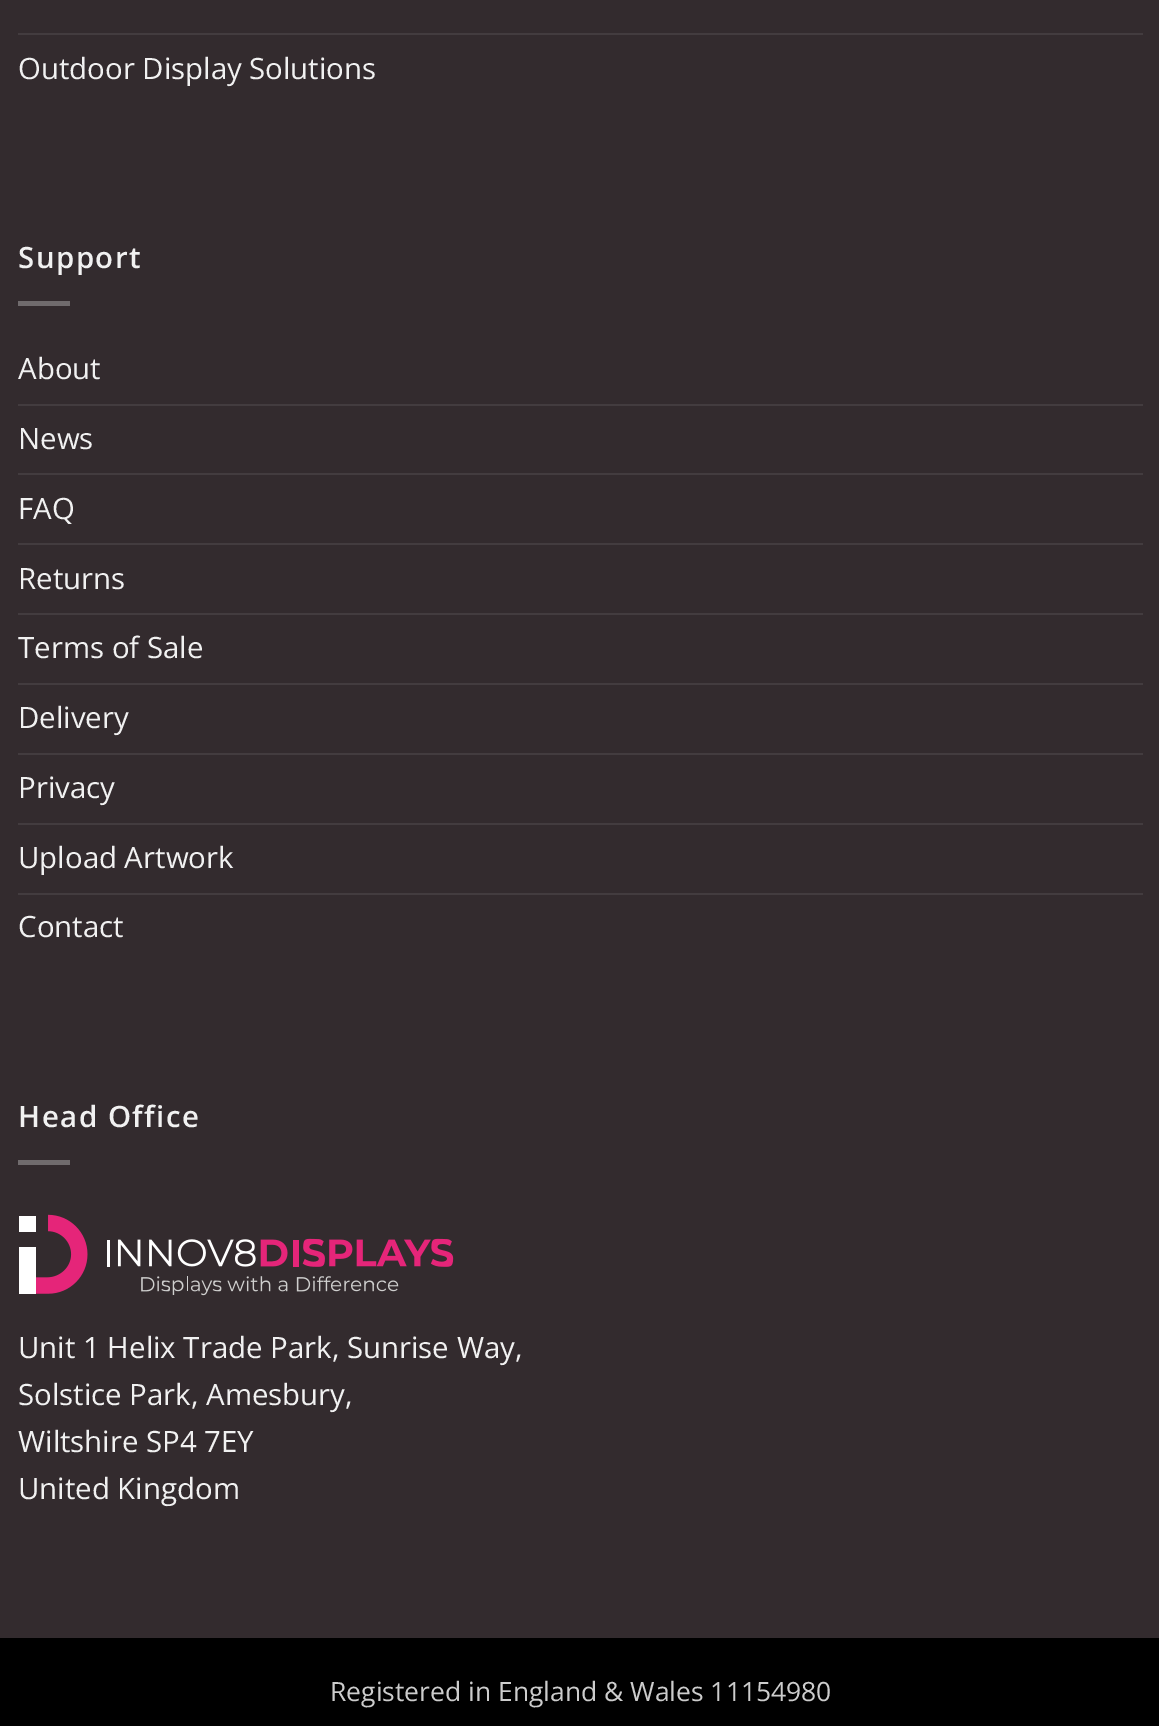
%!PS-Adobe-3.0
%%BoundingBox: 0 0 1159 1726
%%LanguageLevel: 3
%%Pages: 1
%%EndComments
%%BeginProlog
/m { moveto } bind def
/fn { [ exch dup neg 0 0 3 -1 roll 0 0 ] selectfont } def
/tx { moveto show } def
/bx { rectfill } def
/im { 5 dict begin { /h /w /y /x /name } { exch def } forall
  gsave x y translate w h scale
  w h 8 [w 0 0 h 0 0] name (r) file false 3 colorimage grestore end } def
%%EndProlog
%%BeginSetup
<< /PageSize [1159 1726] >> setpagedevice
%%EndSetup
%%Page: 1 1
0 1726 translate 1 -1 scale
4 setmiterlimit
0.2 0.169 0.18 setrgbcolor
0 0 1159 1726 bx
0.263 0.235 0.247 setrgbcolor
18 33 1125 2 bx
/OpenSans-Regular 29.4 fn
0.945 setgray
(Outdoor Display Solutions) 18 79 tx
/OpenSans-SemiBold 29.4 fn
18 268 m 1.5 0 (Support) ashow
0.439 0.42 0.427 setrgbcolor
18 301 52 5 bx
/OpenSans-Regular 29.4 fn
0.945 setgray
(About) 18 379 tx
0.263 0.235 0.247 setrgbcolor
18 404 1125 2 bx
0.945 setgray
(News) 18 449 tx
0.263 0.235 0.247 setrgbcolor
18 473 1125 2 bx
0.945 setgray
(FAQ) 18 519 tx
0.263 0.235 0.247 setrgbcolor
18 543 1125 2 bx
0.945 setgray
(Returns) 18 589 tx
0.263 0.235 0.247 setrgbcolor
18 613 1125 2 bx
0.945 setgray
(Terms of Sale) 18 658 tx
0.263 0.235 0.247 setrgbcolor
18 683 1125 2 bx
0.945 setgray
(Delivery) 18 728 tx
0.263 0.235 0.247 setrgbcolor
18 753 1125 2 bx
0.945 setgray
(Privacy) 18 798 tx
0.263 0.235 0.247 setrgbcolor
18 823 1125 2 bx
0.945 setgray
(Upload Artwork) 18 868 tx
0.263 0.235 0.247 setrgbcolor
18 893 1125 2 bx
0.945 setgray
(Contact) 18 937 tx
/OpenSans-SemiBold 29.4 fn
18 1127 m 1.5 0 (Head Office) ashow
0.439 0.42 0.427 setrgbcolor
18 1160 52 5 bx
(image0.raw) 19 1214 435 82 im
/OpenSans-Regular 29.4 fn
0.945 setgray
(Unit 1 Helix Trade Park, Sunrise Way,) 18 1358 tx
(Solstice Park, Amesbury,) 18 1405 tx
(Wiltshire SP4 7EY) 18 1452 tx
(United Kingdom) 18 1499 tx
0 setgray
0 1638 1159 88 bx
/OpenSans-Regular 26.5 fn
0.8 setgray
(Registered in England & Wales 11154980) 330 1701 tx
showpage
%%EOF
